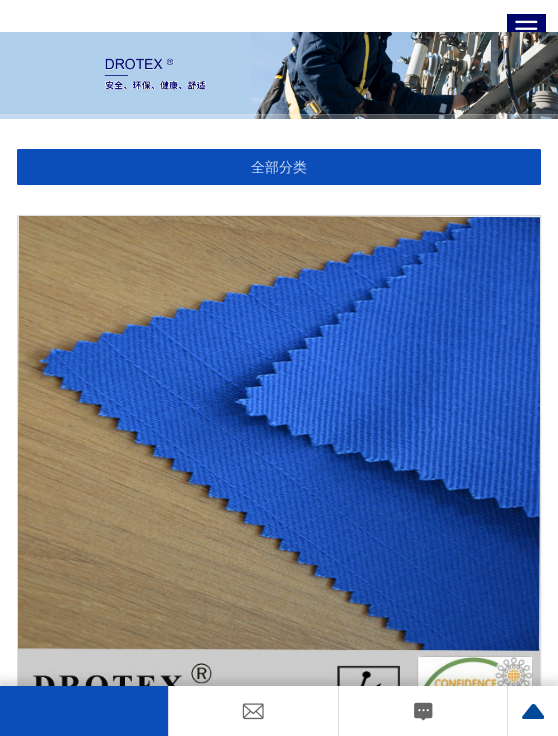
%!PS-Adobe-3.0
%%BoundingBox: 0 0 558 736
%%LanguageLevel: 3
%%Pages: 1
%%EndComments
%%BeginProlog
/f { fill } bind def
/fn { [ exch dup neg 0 0 3 -1 roll 0 0 ] selectfont } def
/tx { moveto show } def
/bx { rectfill } def
/al { dup .setfillconstantalpha .setstrokeconstantalpha } def
/rr { 5 dict begin { /r /h /w /y /x } { exch def } forall
  x r add y moveto x w add y 2 copy h add r arct x w add y h add x 1 index r arct
  x y h add x y r arct x y 2 copy exch w add exch r arct closepath end } def
/sh { 12 dict begin { /a /b /q /h /w /y /x } { exch def } forall gsave /was 0 def
  9 -2 -9 { dup b mul 4 div /e exch def 1 sub .425 mul 2.718 exch exp 1 add a .99 .min exch div /now exch def
    1 1 now sub 1 was sub div sub al /was now def
    w h .min e 2 mul add 0 gt { x e sub y e sub w e 2 mul add h e 2 mul add
      q e add b .6 mul add w h .min 2 div e add .min 0 .max rr fill } if } for grestore end } def
/im { 5 dict begin { /h /w /y /x /name } { exch def } forall
  gsave x y translate w h scale
  w h 8 [w 0 0 h 0 0] name (r) file false 3 colorimage grestore end } def
%%EndProlog
%%BeginSetup
<< /PageSize [558 736] /PageUsesTransparency true >> setpagedevice
%%EndSetup
%%Page: 1 1
0 .pushpdf14devicefilter
0 736 translate 1 -1 scale
4 setmiterlimit
1 setgray
0 0 558 736 bx
0 0.02 0.42 setrgbcolor
507 14 39 18 bx
(image0.raw) 515 20 23 10 im
(image1.raw) 0 32 558 87 im
0.043 0.302 0.725 setrgbcolor
17 149 524 36 2 rr f
/WenQuanYiZenHei-Medium 14 fn
0.808 0.859 0.945 setrgbcolor
(全部分类) 251 172 tx
0.867 setgray
17.5 215.5 523 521 rectstroke
(image2.raw) 18 216 522 470 im
0 setgray
0 681 558 50 0 5 0.15 sh
1 setgray
169 686 389 50 bx
0.867 setgray
168 686 1 50 bx
0.043 0.302 0.725 setrgbcolor
0 686 168 50 bx
0.867 setgray
338 686 1 50 bx
(image3.raw) 242 703 22 17 im
507 686 1 50 bx
(image4.raw) 414 702 19 19 im
(image5.raw) 522 704 22 15 im
.poppdf14devicefilter showpage
%%EOF
